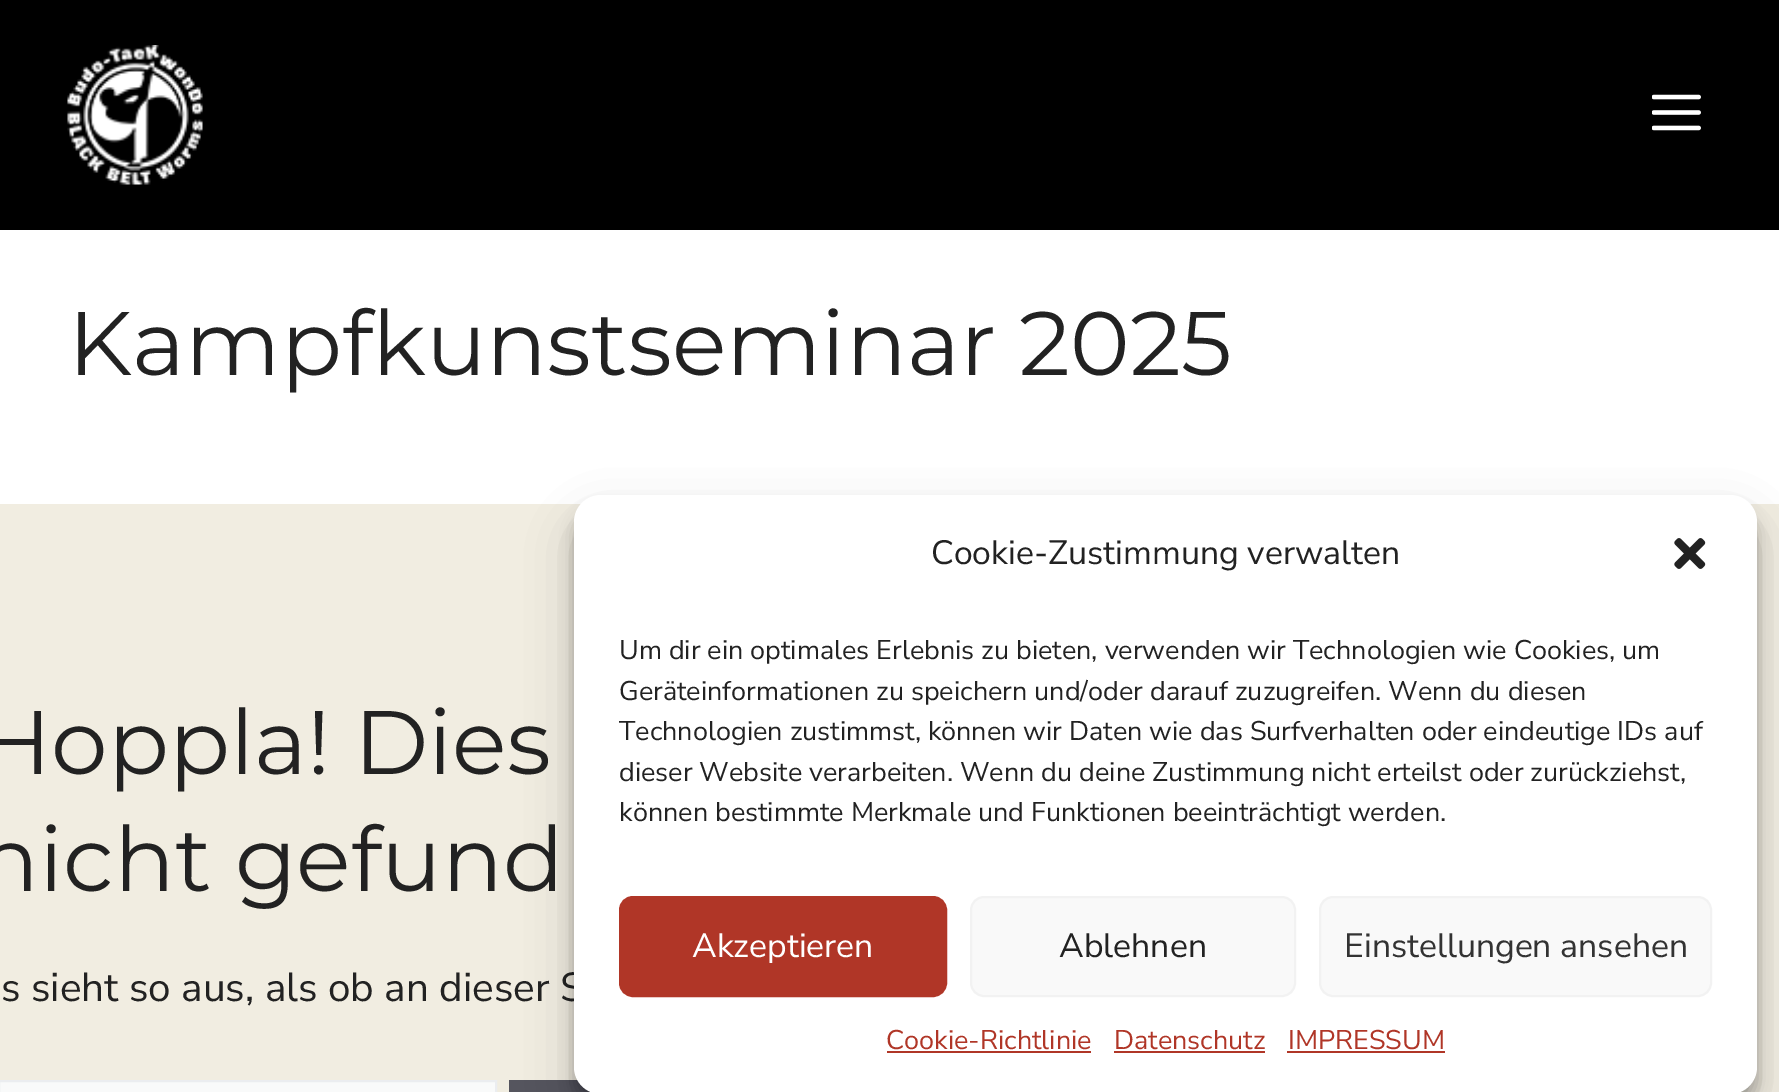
%!PS-Adobe-3.0
%%BoundingBox: 0 0 1779 1092
%%LanguageLevel: 3
%%Pages: 1
%%EndComments
%%BeginProlog
/m { moveto } bind def
/l { lineto } bind def
/h { closepath } bind def
/f { fill } bind def
/S { stroke } bind def
/q { gsave } bind def
/Q { grestore } bind def
/w { setlinewidth } bind def
/fn { [ exch dup neg 0 0 3 -1 roll 0 0 ] selectfont } def
/tx { moveto show } def
/bx { rectfill } def
/al { dup .setfillconstantalpha .setstrokeconstantalpha } def
/rr { 5 dict begin { /r /h /w /y /x } { exch def } forall
  x r add y moveto x w add y 2 copy h add r arct x w add y h add x 1 index r arct
  x y h add x y r arct x y 2 copy exch w add exch r arct closepath end } def
/sh { 12 dict begin { /a /b /q /h /w /y /x } { exch def } forall gsave /was 0 def
  9 -2 -9 { dup b mul 4 div /e exch def 1 sub .425 mul 2.718 exch exp 1 add a .99 .min exch div /now exch def
    1 1 now sub 1 was sub div sub al /was now def
    w h .min e 2 mul add 0 gt { x e sub y e sub w e 2 mul add h e 2 mul add
      q e add b .6 mul add w h .min 2 div e add .min 0 .max rr fill } if } for grestore end } def
/im { 5 dict begin { /h /w /y /x /name } { exch def } forall
  gsave x y translate w h scale
  w h 8 [w 0 0 h 0 0] name (r) file false 3 colorimage grestore end } def
%%EndProlog
%%BeginSetup
<< /PageSize [1779 1092] /PageUsesTransparency true >> setpagedevice
%%EndSetup
%%Page: 1 1
0 .pushpdf14devicefilter
0 1092 translate 1 -1 scale
4 setmiterlimit
0.945 0.929 0.882 setrgbcolor
0 0 1779 1092 bx
0 setgray
0 0 1779 230 bx
(image0.raw) 67 45 136 140 im
(image1.raw) 1652 94 49 37 im
1 setgray
0 230 1779 274 bx
/Montserrat-Regular 90 fn
0.133 setgray
(Kampfkunstseminar 2025) 68 375 tx
(Hoppla! Dies) -22 774 tx
(nicht gefund) -22 891 tx
/NunitoSans-Regular 40.5 fn
(s sieht so aus, als ob an dieser S) 1 1001 tx
0.976 0.98 0.98 setrgbcolor
-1 1081 m 496 1081 l 496 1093 l -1 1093 l h q f Q
0.922 0.929 0.941 setrgbcolor
2 w
S
0.333 0.333 0.369 setrgbcolor
509 1080 82 12 bx
0 setgray
574 509 1183 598 27 7 0.23 sh
574 518 1183 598 27 22.5 0.19 sh
1 setgray
574 495 1183 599 27 rr f
/NunitoSans-Regular 33.75 fn
0.133 setgray
(Cookie-Zustimmung verwalten) 931 564 tx
(image2.raw) 1674 538 32 31 im
/NunitoSans-Regular 27 fn
(Um dir ein optimales Erlebnis zu bieten, verwenden wir Technologien wie Cookies, um) 619 659 tx
(Geräteinformationen zu speichern und/oder darauf zuzugreifen. Wenn du diesen) 619 700 tx
(Technologien zustimmst, können wir Daten wie das Surfverhalten oder eindeutige IDs auf) 619 740 tx
(dieser Website verarbeiten. Wenn du deine Zustimmung nicht erteilst oder zurückziehst,) 619 781 tx
(können bestimmte Merkmale und Funktionen beeinträchtigt werden.) 619 821 tx
0.69 0.212 0.153 setrgbcolor
620 897 326 99 13 rr q f Q
S
/NunitoSans-Regular 33.75 fn
1 setgray
(Akzeptieren) 692 957 tx
0.976 setgray
971 897 324 99 13 rr q f Q
0.949 setgray
S
0.133 setgray
(Ablehnen) 1059 957 tx
0.976 setgray
1320 897 391 99 13 rr q f Q
0.949 setgray
S
0.2 setgray
(Einstellungen ansehen) 1344 957 tx
/NunitoSans-Regular 27 fn
0.69 0.212 0.153 setrgbcolor
(Cookie-Richtlinie) 886 1049 tx
887 1051 204 2 bx
(Datenschutz) 1114 1049 tx
1114 1051 151 2 bx
(IMPRESSUM) 1288 1049 tx
1287 1051 158 2 bx
.poppdf14devicefilter showpage
%%EOF
